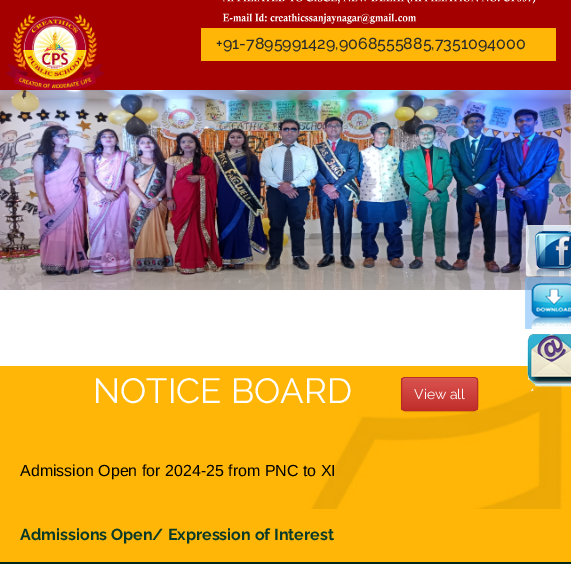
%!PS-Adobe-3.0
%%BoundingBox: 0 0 571 564
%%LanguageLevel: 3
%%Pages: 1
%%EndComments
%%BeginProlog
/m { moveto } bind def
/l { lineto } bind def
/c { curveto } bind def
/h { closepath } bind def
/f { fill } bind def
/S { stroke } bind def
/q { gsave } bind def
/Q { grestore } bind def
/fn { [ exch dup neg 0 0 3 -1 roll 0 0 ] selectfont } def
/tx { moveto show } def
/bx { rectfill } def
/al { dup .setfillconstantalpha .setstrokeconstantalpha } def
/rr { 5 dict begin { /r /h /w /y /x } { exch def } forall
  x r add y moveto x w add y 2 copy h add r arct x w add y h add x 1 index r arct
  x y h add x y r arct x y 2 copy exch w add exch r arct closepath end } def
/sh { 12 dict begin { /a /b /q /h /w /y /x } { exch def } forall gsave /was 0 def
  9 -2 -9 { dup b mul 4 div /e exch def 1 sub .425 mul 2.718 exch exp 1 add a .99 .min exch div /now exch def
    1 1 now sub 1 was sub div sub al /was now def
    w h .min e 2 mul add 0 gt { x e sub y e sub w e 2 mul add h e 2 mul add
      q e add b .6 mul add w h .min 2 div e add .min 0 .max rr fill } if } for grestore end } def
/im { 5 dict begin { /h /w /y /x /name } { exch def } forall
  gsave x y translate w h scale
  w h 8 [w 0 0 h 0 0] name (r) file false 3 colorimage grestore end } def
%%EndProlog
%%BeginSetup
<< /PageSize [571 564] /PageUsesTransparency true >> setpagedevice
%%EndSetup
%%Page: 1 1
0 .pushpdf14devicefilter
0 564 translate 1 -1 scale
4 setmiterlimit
1 setgray
0 0 571 564 bx
0.643 0 0 setrgbcolor
0 0 571 90 bx
(image0.raw) 5 14 100 76 im
(image1.raw) 222 0 314 24 im
1 0.714 0.024 setrgbcolor
201 28 355 33 bx
/Raleway-Medium 16 fn
0.165 0.165 0.157 setrgbcolor
(+91-7895991429,9068555885,7351094000) 216 49 tx
(image5.raw) 0 90 571 200 im
(image2.raw) 525 225 46 52 im
(image3.raw) 525 277 46 52 im
(image6.raw) 0 366 571 143 im
(image4.raw) 527 334 44 57 im
/Raleway-Regular 35 fn
1 setgray
(NOTICE BOARD) 93 403 tx
0 setgray
401 378 77 34 4 0.5 0.07 sh
q
401 377 77 34 4 rr clip newpath
q 401 378 m 478 378 l 478 410 l 401 410 l h clip newpath
<< /ShadingType 2 /ColorSpace /DeviceRGB /Coords [440 378 440 410] /Extend [true true] /Function << /FunctionType 2 /Domain [0 1] /C0 [0.851 0.325 0.31] /C1 [0.757 0.18 0.165] /N 1 >> >> shfill Q
Q
0.15 al
1 setgray
405 379 m 474 379 l 476 379 477 380 477 382 c 477 375 467 378 462 378 c 416 378 l 412 378 402 375 402 382 c 402 380 403 379 405 379 c h f
1 al
0.725 0.173 0.157 setrgbcolor
401.5 377.5 76 33 3.5 rr S
/Raleway-Regular 14 fn
1 setgray
(View all) 414 399 tx
/LiberationSans-Regular 16 fn
0 setgray
(Admission Open for 2024-25 from PNC to XI) 20 476 tx
1 0.714 0.024 setrgbcolor
0 509 571 53 bx
0.02 0.149 0.106 setrgbcolor
0 562 571 2 bx
/Raleway-Bold 16 fn
0.035 0.227 0.161 setrgbcolor
(Admissions Open/ Expression of Interest) 20 540 tx
.poppdf14devicefilter showpage
%%EOF
